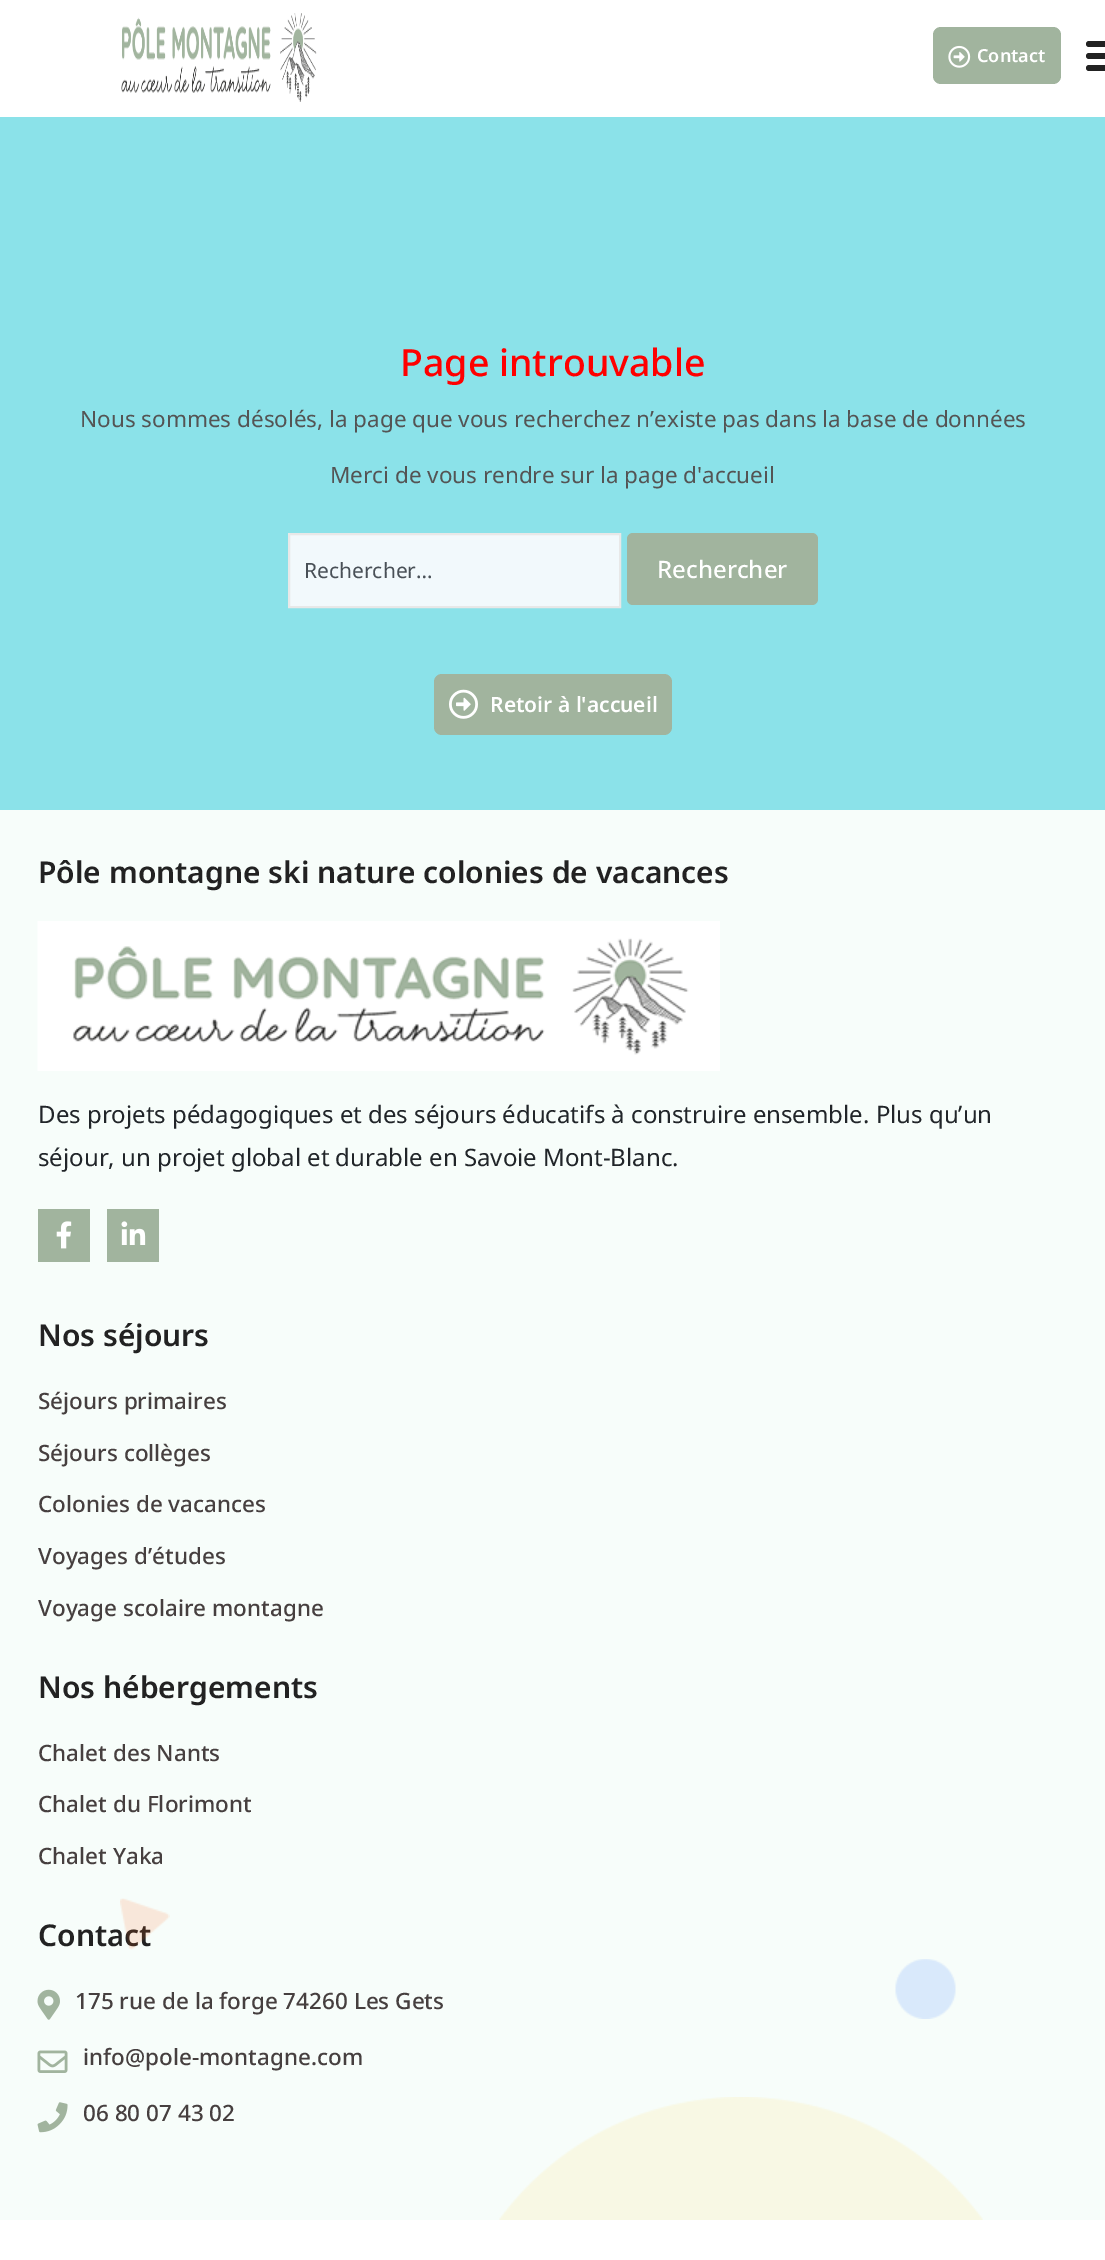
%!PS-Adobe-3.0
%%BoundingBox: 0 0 1105 2260
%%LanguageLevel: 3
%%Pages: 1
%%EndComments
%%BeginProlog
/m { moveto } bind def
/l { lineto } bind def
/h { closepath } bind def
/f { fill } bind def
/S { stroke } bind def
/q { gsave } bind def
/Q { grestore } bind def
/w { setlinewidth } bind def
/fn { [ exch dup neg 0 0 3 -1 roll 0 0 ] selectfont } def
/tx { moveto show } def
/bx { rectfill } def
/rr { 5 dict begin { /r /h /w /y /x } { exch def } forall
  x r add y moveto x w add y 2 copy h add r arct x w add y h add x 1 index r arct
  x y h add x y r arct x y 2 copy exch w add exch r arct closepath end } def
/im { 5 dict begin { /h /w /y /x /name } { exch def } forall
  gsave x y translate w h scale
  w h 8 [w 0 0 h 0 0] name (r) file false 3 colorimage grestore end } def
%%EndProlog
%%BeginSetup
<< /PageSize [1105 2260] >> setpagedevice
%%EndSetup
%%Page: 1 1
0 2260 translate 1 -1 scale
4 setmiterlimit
1 setgray
0 0 1105 2260 bx
(image0.raw) 121 13 196 89 im
0.631 0.706 0.62 setrgbcolor
933 27 128 57 8 rr f
(image1.raw) 948 45 23 23 im
/NotoSans-SemiBold 18 fn
1 setgray
(Contact) 977 62 tx
0.133 setgray
1086 41 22 6 3 rr f
1086 53 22 6 3 rr f
1086 65 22 6 3 rr f
0.545 0.886 0.914 setrgbcolor
0 117 1105 693 bx
/NotoSans-Medium 37.5 fn
1 0 0 setrgbcolor
(Page introuvable) 400 376 tx
/NotoSans-Regular 22.5 fn
0.329 setgray
(Nous sommes désolés, la page que vous recherchez n’existe pas dans la base de données) 80 427 tx
(Merci de vous rendre sur la page d'accueil) 330 483 tx
0.949 0.976 0.988 setrgbcolor
289 534 m 620 534 l 620 607 l 289 607 l h q f Q
0.91 setgray
2 w
S
/NotoSans-Regular 21 fn
0.286 0.314 0.341 setrgbcolor
(Rechercher…) 304 578 tx
0.631 0.706 0.62 setrgbcolor
627 533 191 72 6 rr f
/NotoSans-Medium 24 fn
1 setgray
(Rechercher) 657 578 tx
0.631 0.706 0.62 setrgbcolor
434 674 238 61 8 rr f
(image2.raw) 449 689 29 30 im
/NotoSans-SemiBold 21 fn
1 setgray
(Retoir à l'accueil) 490 712 tx
0.969 0.992 0.98 setrgbcolor
0 810 1105 1410 bx
/NotoSans-SemiBold 30 fn
0.133 setgray
(Pôle montagne ski nature colonies de vacances) 38 883 tx
(image3.raw) 37 921 683 150 im
/NotoSans-Regular 24 fn
0.129 0.145 0.161 setrgbcolor
(Des projets pédagogiques et des séjours éducatifs à construire ensemble. Plus qu’un) 38 1123 tx
(séjour, un projet global et durable en Savoie Mont-Blanc.) 38 1166 tx
0.631 0.706 0.62 setrgbcolor
38 1209 52 53 bx
(image4.raw) 56 1221 16 28 im
107 1209 52 53 bx
(image5.raw) 121 1221 25 24 im
/NotoSans-SemiBold 30 fn
0.133 setgray
(Nos séjours) 38 1346 tx
/NotoSans-Medium 22.5 fn
0.275 0.247 0.247 setrgbcolor
(Séjours primaires) 38 1409 tx
(Séjours collèges) 38 1461 tx
(Colonies de vacances) 38 1512 tx
(Voyages d’études) 38 1564 tx
(Voyage scolaire montagne) 38 1616 tx
/NotoSans-SemiBold 30 fn
0.133 setgray
(Nos hébergements) 38 1698 tx
/NotoSans-Medium 22.5 fn
0.275 0.247 0.247 setrgbcolor
(Chalet des Nants) 38 1761 tx
(Chalet du Florimont) 38 1812 tx
(Chalet Yaka) 38 1864 tx
/NotoSans-SemiBold 30 fn
0.133 setgray
(Contact) 38 1946 tx
(image6.raw) 37 1989 23 31 im
/NotoSans-Medium 22.5 fn
0.275 0.247 0.247 setrgbcolor
(175 rue de la forge 74260 Les Gets) 75 2009 tx
(image7.raw) 37 2050 31 23 im
(info@pole-montagne.com) 83 2065 tx
(image8.raw) 37 2102 31 31 im
(06 80 07 43 02) 83 2121 tx
(image9.raw) 120 1898 50 52 im
(image10.raw) 895 1959 61 60 im
(image11.raw) 499 2097 484 123 im
showpage
%%EOF
